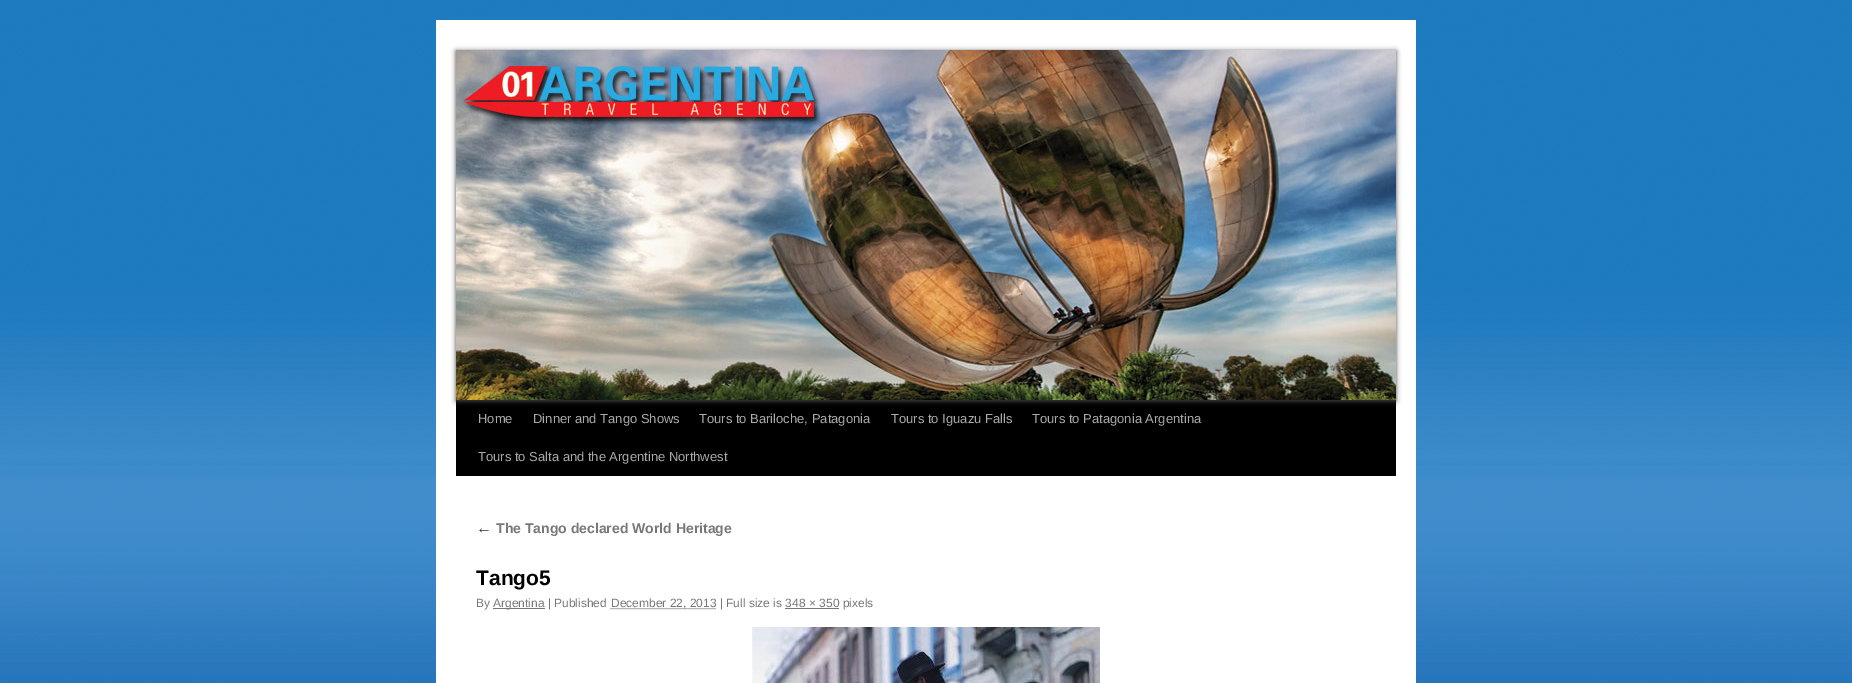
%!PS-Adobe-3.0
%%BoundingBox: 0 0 1852 683
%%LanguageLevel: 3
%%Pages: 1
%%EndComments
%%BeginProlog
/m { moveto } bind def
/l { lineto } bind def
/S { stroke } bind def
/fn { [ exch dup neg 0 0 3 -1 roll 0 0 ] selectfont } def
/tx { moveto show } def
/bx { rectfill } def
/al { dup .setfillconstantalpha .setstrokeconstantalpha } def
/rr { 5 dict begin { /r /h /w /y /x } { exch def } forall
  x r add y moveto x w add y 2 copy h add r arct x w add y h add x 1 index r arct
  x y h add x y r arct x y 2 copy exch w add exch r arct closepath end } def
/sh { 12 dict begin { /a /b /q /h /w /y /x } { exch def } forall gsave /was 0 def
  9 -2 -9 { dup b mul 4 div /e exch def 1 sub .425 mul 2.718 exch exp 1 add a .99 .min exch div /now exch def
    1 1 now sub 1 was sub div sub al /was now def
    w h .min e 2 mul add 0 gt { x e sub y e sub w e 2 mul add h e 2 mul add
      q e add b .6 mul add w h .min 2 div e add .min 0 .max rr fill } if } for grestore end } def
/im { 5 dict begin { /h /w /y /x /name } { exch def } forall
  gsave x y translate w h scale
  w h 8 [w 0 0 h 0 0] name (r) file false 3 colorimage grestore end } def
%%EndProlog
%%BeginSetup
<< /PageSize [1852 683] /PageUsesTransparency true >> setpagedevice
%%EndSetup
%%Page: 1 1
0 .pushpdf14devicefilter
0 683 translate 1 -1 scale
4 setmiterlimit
1 setgray
0 0 1852 683 bx
(image0.raw) 0 0 1852 683 im
436 20 980 663 bx
0 setgray
456 400 940 76 bx
0.29 setgray
456 51 940 350 0 2.5 1 sh
(image1.raw) 456 50 940 350 im
/LiberationSans-Regular 13 fn
0.667 setgray
(Home) 478 423 tx
(Dinner and Tango Shows) 533 423 tx
(Tours to Bariloche, Patagonia) 699 423 tx
(Tours to Iguazu Falls) 891 423 tx
(Tours to Patagonia Argentina) 1032 423 tx
(Tours to Salta and the Argentine Northwest) 478 461 tx
/LiberationSerif-Italic 16 fn
0.2 setgray
(←) 476 533 tx
/LiberationSans-Bold 14 fn
0.467 setgray
(The Tango declared World Heritage) 496 533 tx
/LiberationSans-Bold 21 fn
0 setgray
(Tango5) 476 585 tx
/LiberationSans-Regular 12 fn
0.467 setgray
(By) 476 607 tx
493 608 52 1 bx
(Argentina | Published) 493 607 tx
[1 1] 0 setdash
610.5 608.5 m 716 608.5 l S
(December 22, 2013 | Full size is 348 × 350 pixels) 611 607 tx
785 608 54 1 bx
(image2.raw) 752 627 348 56 im
.poppdf14devicefilter showpage
%%EOF
